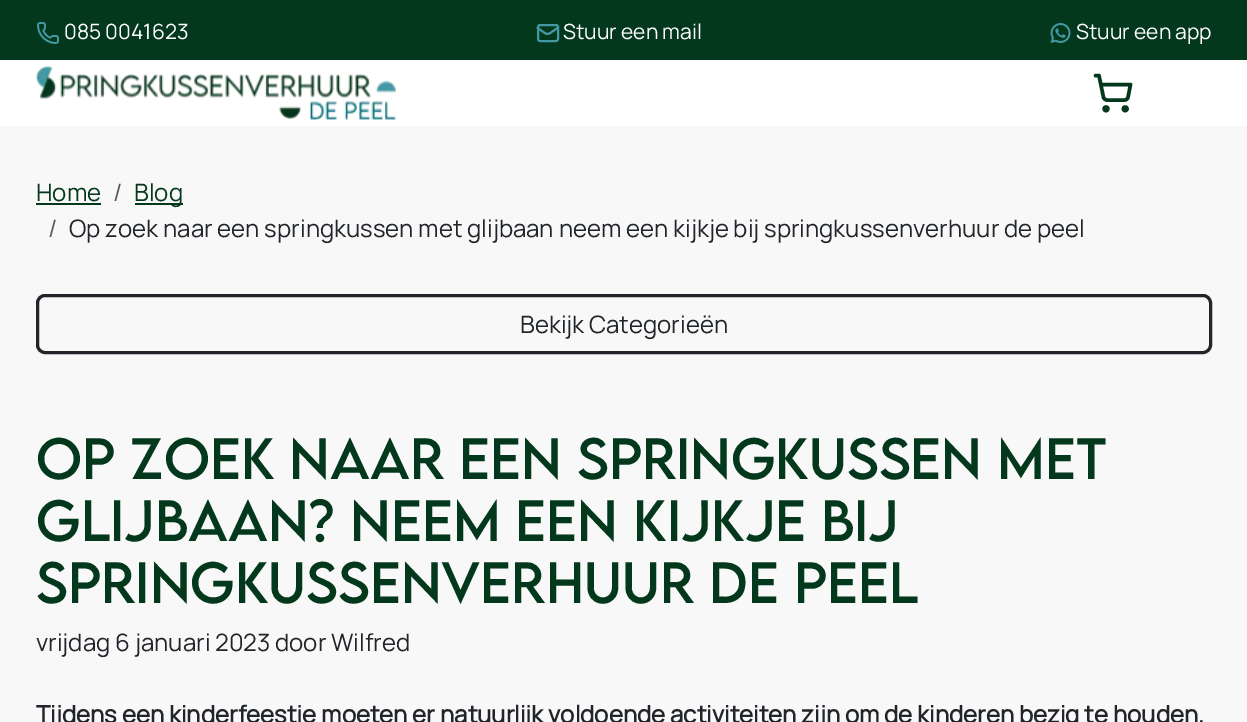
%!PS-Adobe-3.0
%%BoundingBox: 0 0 1247 722
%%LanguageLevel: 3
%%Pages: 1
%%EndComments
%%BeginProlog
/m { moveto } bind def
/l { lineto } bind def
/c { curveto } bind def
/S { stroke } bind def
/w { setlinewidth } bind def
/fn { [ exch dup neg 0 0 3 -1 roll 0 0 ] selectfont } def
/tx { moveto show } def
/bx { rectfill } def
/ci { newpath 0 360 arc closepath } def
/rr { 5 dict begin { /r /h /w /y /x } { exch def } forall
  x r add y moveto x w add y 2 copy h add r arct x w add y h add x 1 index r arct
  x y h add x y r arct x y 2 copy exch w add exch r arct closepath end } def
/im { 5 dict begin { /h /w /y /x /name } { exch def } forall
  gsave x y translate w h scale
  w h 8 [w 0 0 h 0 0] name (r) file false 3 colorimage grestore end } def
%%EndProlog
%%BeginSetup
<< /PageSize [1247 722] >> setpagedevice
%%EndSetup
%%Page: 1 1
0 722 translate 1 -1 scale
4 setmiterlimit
0.973 setgray
0 0 1247 722 bx
1 setgray
0 60 1247 66 bx
0.016 0.22 0.11 setrgbcolor
0 0 1247 60 bx
(image0.raw) 37 22 22 22 im
/Manrope-Regular 21 fn
1 setgray
(085 0041623) 64 39 tx
(Stuur een mail) 563 39 tx
0.263 0.6 0.639 setrgbcolor
2 w
1 setlinecap
1 setlinejoin
557.5 28 m 545.5 36 549.5 36 537.5 28 c S
0 setlinecap
0 setlinejoin
538 25 20 16 2 rr S
(image1.raw) 1050 23 21 20 im
1 setgray
(Stuur een app) 1076 39 tx
(image2.raw) 36 66 360 54 im
0.016 0.22 0.11 setrgbcolor
3.5 w
1106 108.8 1.8 ci S
1125.2 108.8 1.8 ci S
1 setlinecap
1 setlinejoin
1095.5 75.5 m 1099 75.5 l 1103.5 97.5 l 1104 99 1105.5 100 1107 100 c 1124.5 100 l 1126 100 1127.5 99 1128 97.5 c 1130.5 84.5 l 1101 84.5 l S
/Manrope-Regular 24 fn
(Home) 36 201 tx
36 203 65 2 bx
0.341 0.353 0.365 setrgbcolor
(/) 113 201 tx
0.016 0.22 0.11 setrgbcolor
135 203 48 2 bx
(Blog) 134 201 tx
0.341 0.353 0.365 setrgbcolor
(/) 48 237 tx
0.129 0.145 0.161 setrgbcolor
(Op zoek naar een springkussen met glijbaan neem een kijkje bij springkussenverhuur de peel) 69 237 tx
3 w
0 setlinecap
0 setlinejoin
37.5 295.5 1173 57 7.5 rr S
(Bekijk Categorieën) 520 333 tx
/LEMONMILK-Regular 51.75 fn
0.016 0.22 0.11 setrgbcolor
(Op zoek naar een springkussen met) 36 479 tx
(glijbaan? Neem een kijkje bij) 36 541 tx
(springkussenverhuur De Peel) 36 603 tx
/Manrope-Regular 24 fn
0.129 0.145 0.161 setrgbcolor
(vrijdag 6 januari 2023 door Wilfred) 36 651 tx
/Manrope-Bold 24 fn
(Tijdens een kinderfeestje moeten er natuurlijk voldoende activiteiten zijn om de kinderen bezig te houden.) 36 723 tx
showpage
%%EOF
